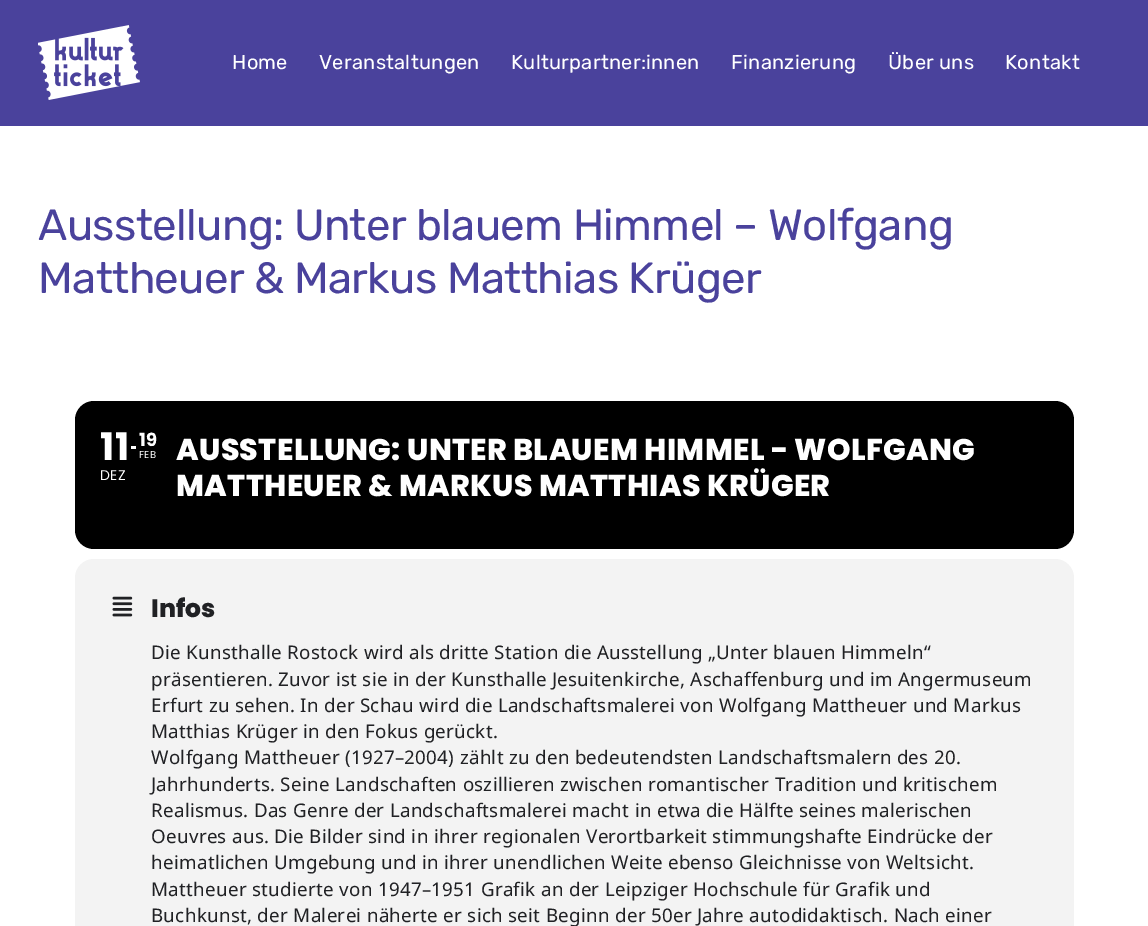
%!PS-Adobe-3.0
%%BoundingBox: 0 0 1148 926
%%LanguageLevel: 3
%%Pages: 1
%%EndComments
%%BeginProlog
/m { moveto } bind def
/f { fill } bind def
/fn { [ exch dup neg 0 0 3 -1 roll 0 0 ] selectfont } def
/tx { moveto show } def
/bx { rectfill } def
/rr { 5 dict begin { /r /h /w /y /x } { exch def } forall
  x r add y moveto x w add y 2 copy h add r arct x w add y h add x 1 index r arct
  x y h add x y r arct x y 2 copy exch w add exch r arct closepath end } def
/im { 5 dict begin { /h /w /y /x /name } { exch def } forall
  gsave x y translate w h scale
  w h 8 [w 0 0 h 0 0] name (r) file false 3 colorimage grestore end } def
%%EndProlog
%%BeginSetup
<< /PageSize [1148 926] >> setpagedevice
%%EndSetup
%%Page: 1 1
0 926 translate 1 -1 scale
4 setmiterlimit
1 setgray
0 0 1148 926 bx
0.29 0.259 0.612 setrgbcolor
0 0 1148 126 bx
(image0.raw) 38 25 102 75 im
/Rubik-Regular 20 fn
1 setgray
232 69 m 0.3 0 (Home) ashow
319 69 m 0.3 0 (Veranstaltungen) ashow
511 69 m 0.3 0 (Kulturpartner:innen) ashow
731 69 m 0.3 0 (Finanzierung) ashow
888 69 m 0.3 0 (Über uns) ashow
1005 69 m 0.3 0 (Kontakt) ashow
/Rubik-Regular 43.75 fn
0.29 0.259 0.612 setrgbcolor
38 240 m -0.65 0 (Ausstellung: Unter blauem Himmel – Wolfgang) ashow
38 293 m -0.65 0 (Mattheuer & Markus Matthias Krüger) ashow
0 setgray
75 401 999 148 19 rr f
/Poppins-Bold 38 fn
1 setgray
100 460 m 0.3 0 (11) ashow
/Poppins-Regular 14 fn
100 480 m 0.3 0 (DEZ) ashow
/Poppins-Bold 18 fn
139 446 m 0.3 0 (19) ashow
131 446 5 3 bx
/Poppins-Regular 10 fn
139 458 m 0.3 0 (FEB) ashow
/Poppins-ExtraBold 30 fn
176 460 m 0.3 0 (AUSSTELLUNG: UNTER BLAUEM HIMMEL - WOLFGANG) ashow
176 496 m 0.3 0 (MATTHEUER & MARKUS MATTHIAS KRÜGER) ashow
0.953 setgray
75 559 999 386 19 rr f
(image1.raw) 112 596 21 21 im
/Poppins-ExtraBold 25 fn
0.125 0.129 0.141 setrgbcolor
(Infos) 151 617 tx
/NotoSans-Regular 18.75 fn
151 659 m 0.3 0 (Die Kunsthalle Rostock wird als dritte Station die Ausstellung „Unter blauen Himmeln“) ashow
151 686 m 0.3 0 (präsentieren. Zuvor ist sie in der Kunsthalle Jesuitenkirche, Aschaffenburg und im Angermuseum) ashow
151 712 m 0.3 0 (Erfurt zu sehen. In der Schau wird die Landschaftsmalerei von Wolfgang Mattheuer und Markus) ashow
151 738 m 0.3 0 (Matthias Krüger in den Fokus gerückt.) ashow
151 764 m 0.3 0 (Wolfgang Mattheuer \(1927–2004\) zählt zu den bedeutendsten Landschaftsmalern des 20.) ashow
151 791 m 0.3 0 (Jahrhunderts. Seine Landschaften oszillieren zwischen romantischer Tradition und kritischem) ashow
151 817 m 0.3 0 (Realismus. Das Genre der Landschaftsmalerei macht in etwa die Hälfte seines malerischen) ashow
151 843 m 0.3 0 (Oeuvres aus. Die Bilder sind in ihrer regionalen Verortbarkeit stimmungshafte Eindrücke der) ashow
151 869 m 0.3 0 (heimatlichen Umgebung und in ihrer unendlichen Weite ebenso Gleichnisse von Weltsicht.) ashow
151 896 m 0.3 0 (Mattheuer studierte von 1947–1951 Grafik an der Leipziger Hochschule für Grafik und) ashow
151 922 m 0.3 0 (Buchkunst, der Malerei näherte er sich seit Beginn der 50er Jahre autodidaktisch. Nach einer) ashow
showpage
%%EOF
